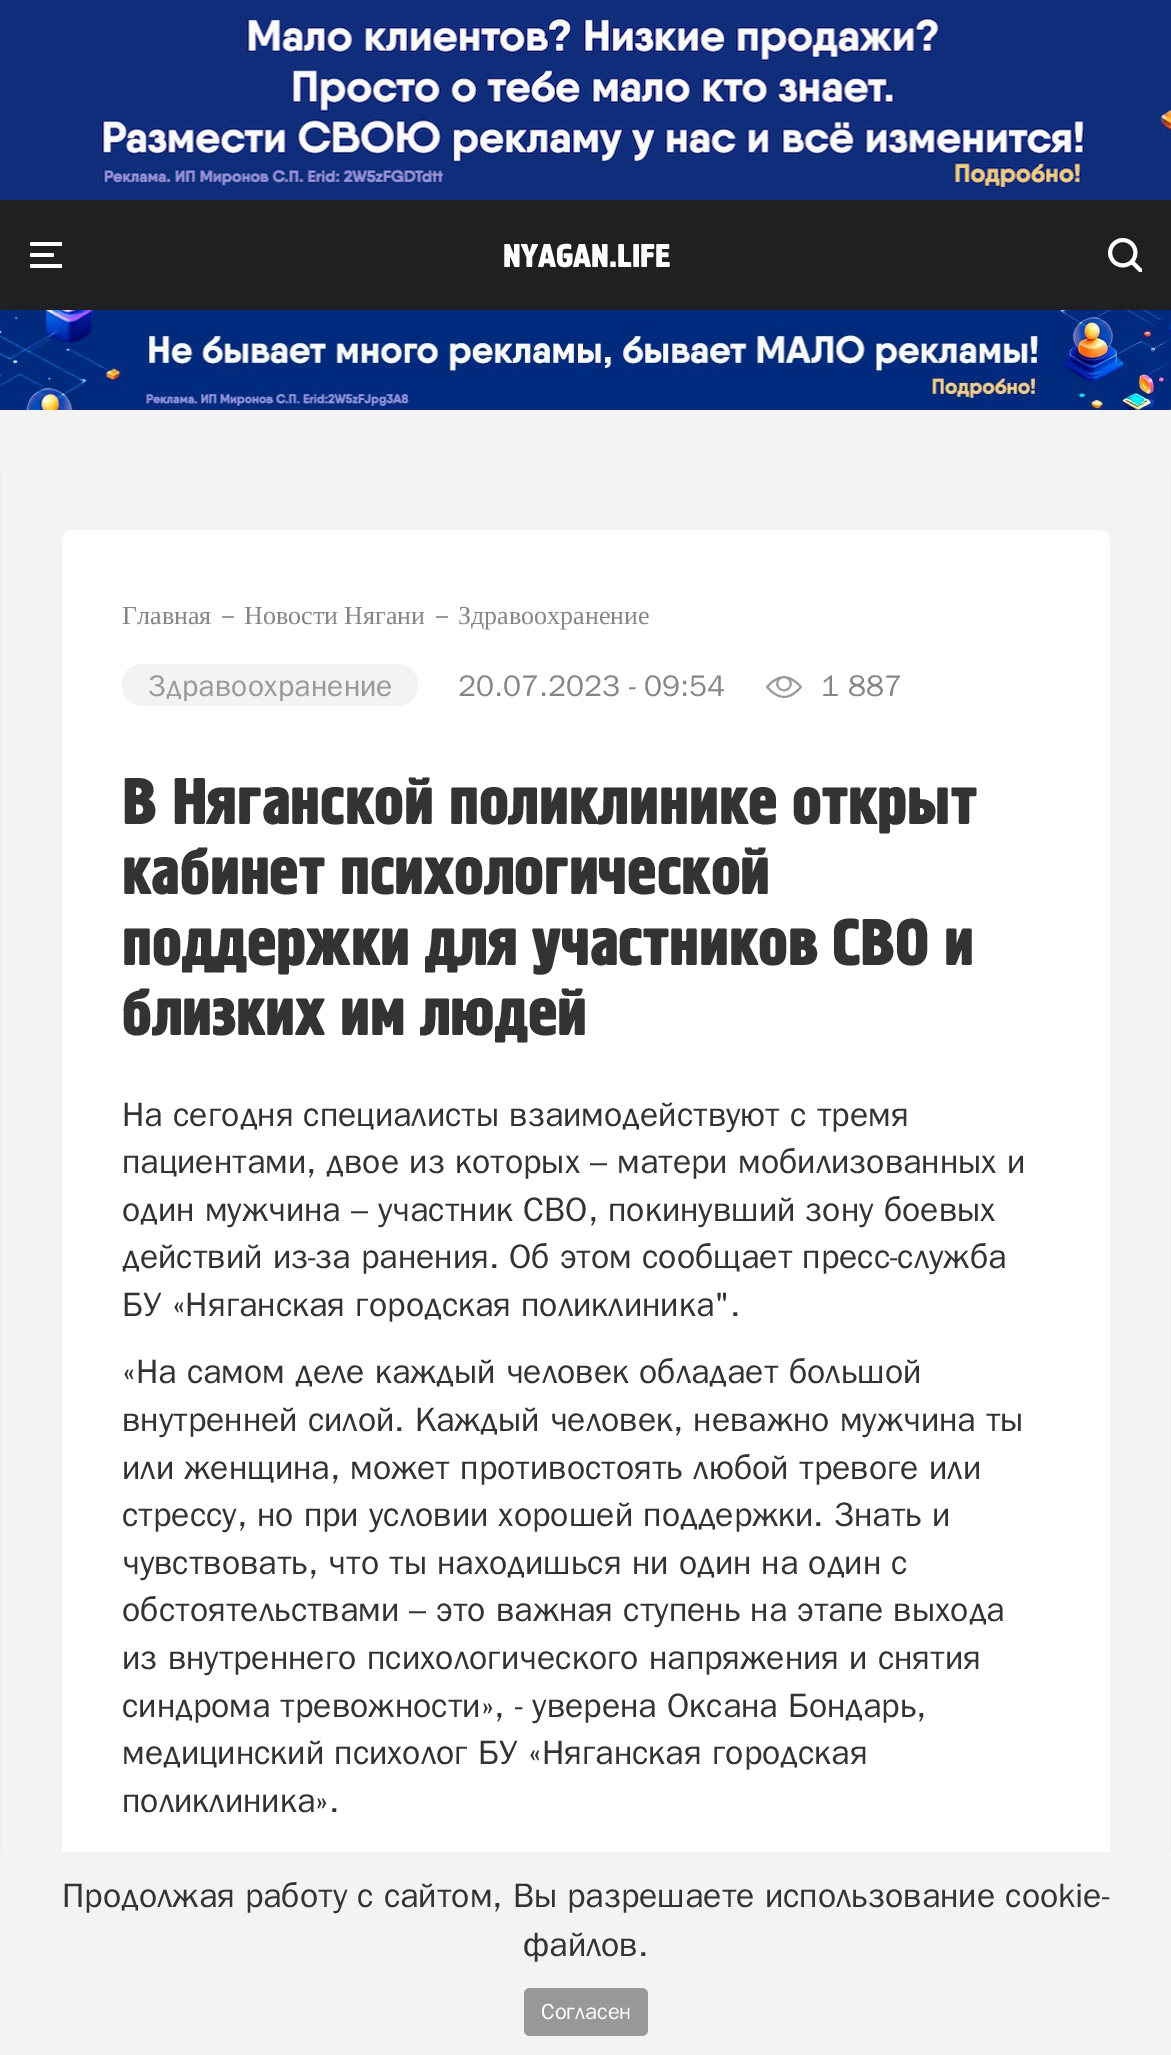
%!PS-Adobe-3.0
%%BoundingBox: 0 0 1171 2055
%%LanguageLevel: 3
%%Pages: 1
%%EndComments
%%BeginProlog
/m { moveto } bind def
/f { fill } bind def
/fn { [ exch dup neg 0 0 3 -1 roll 0 0 ] selectfont } def
/tx { moveto show } def
/bx { rectfill } def
/rr { 5 dict begin { /r /h /w /y /x } { exch def } forall
  x r add y moveto x w add y 2 copy h add r arct x w add y h add x 1 index r arct
  x y h add x y r arct x y 2 copy exch w add exch r arct closepath end } def
/im { 5 dict begin { /h /w /y /x /name } { exch def } forall
  gsave x y translate w h scale
  w h 8 [w 0 0 h 0 0] name (r) file false 3 colorimage grestore end } def
%%EndProlog
%%BeginSetup
<< /PageSize [1171 2055] >> setpagedevice
%%EndSetup
%%Page: 1 1
0 2055 translate 1 -1 scale
4 setmiterlimit
0.125 setgray
0 0 1171 2055 bx
(image0.raw) 0 0 1171 200 im
(image1.raw) 30 242 32 26 im
/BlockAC-Regular 32 fn
1 setgray
(NYAGAN.LIFE) 503 267 tx
(image2.raw) 1108 238 34 34 im
0.953 setgray
0 410 1171 60 bx
(image3.raw) 0 310 1171 100 im
2 470 1168 1382 bx
0.933 setgray
1170 470 1 1382 bx
0 470 2 1382 bx
1 setgray
62 530 1048 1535 10 rr f
/LiberationSerif-Regular 26 fn
0.525 setgray
(Главная) 122 624 tx
0.6 setgray
222 616 12 2 bx
0.525 setgray
(Новости Нягани) 244 624 tx
0.6 setgray
436 616 12 2 bx
0.525 setgray
(Здравоохранение) 458 624 tx
0.953 setgray
122 664 296 42 20 rr f
/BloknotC-Regular 30 fn
0.6 setgray
148 696 m 0.25 0 (Здравоохранение) ashow
0.525 setgray
(20.07.2023 - 09:54) 458 696 tx
(image4.raw) 766 676 36 22 im
(1 887) 821 696 tx
/BlockAC-Regular 64 fn
0.2 setgray
(В Няганской поликлинике открыт) 122 824 tx
(кабинет психологической) 122 894 tx
(поддержки для участников СВО и) 122 965 tx
(близких им людей) 122 1035 tx
/BloknotC-Regular 34 fn
(На сегодня специалисты взаимодействуют с тремя) 122 1126 tx
(пациентами, двое из которых – матери мобилизованных и) 122 1173 tx
(один мужчина – участник СВО, покинувший зону боевых) 122 1221 tx
(действий из-за ранения. Об этом сообщает пресс-служба) 122 1268 tx
(БУ «Няганская городская поликлиника".) 122 1316 tx
(«На самом деле каждый человек обладает большой) 122 1383 tx
(внутренней силой. Каждый человек, неважно мужчина ты) 122 1431 tx
(или женщина, может противостоять любой тревоге или) 122 1479 tx
(стрессу, но при условии хорошей поддержки. Знать и) 122 1526 tx
(чувствовать, что ты находишься ни один на один с) 122 1574 tx
(обстоятельствами – это важная ступень на этапе выхода) 122 1621 tx
(из внутреннего психологического напряжения и снятия) 122 1669 tx
(синдрома тревожности», - уверена Оксана Бондарь,) 122 1717 tx
(медицинский психолог БУ «Няганская городская) 122 1764 tx
(поликлиника».) 122 1812 tx
0.953 setgray
0 1852 1171 203 bx
0.2 setgray
(Продолжая работу с сайтом, Вы разрешаете использование cookie-) 62 1907 tx
(файлов.) 523 1956 tx
0.596 setgray
524 1988 124 48 6 rr f
/BloknotC-Regular 22 fn
1 setgray
(Согласен) 541 2019 tx
showpage
%%EOF
